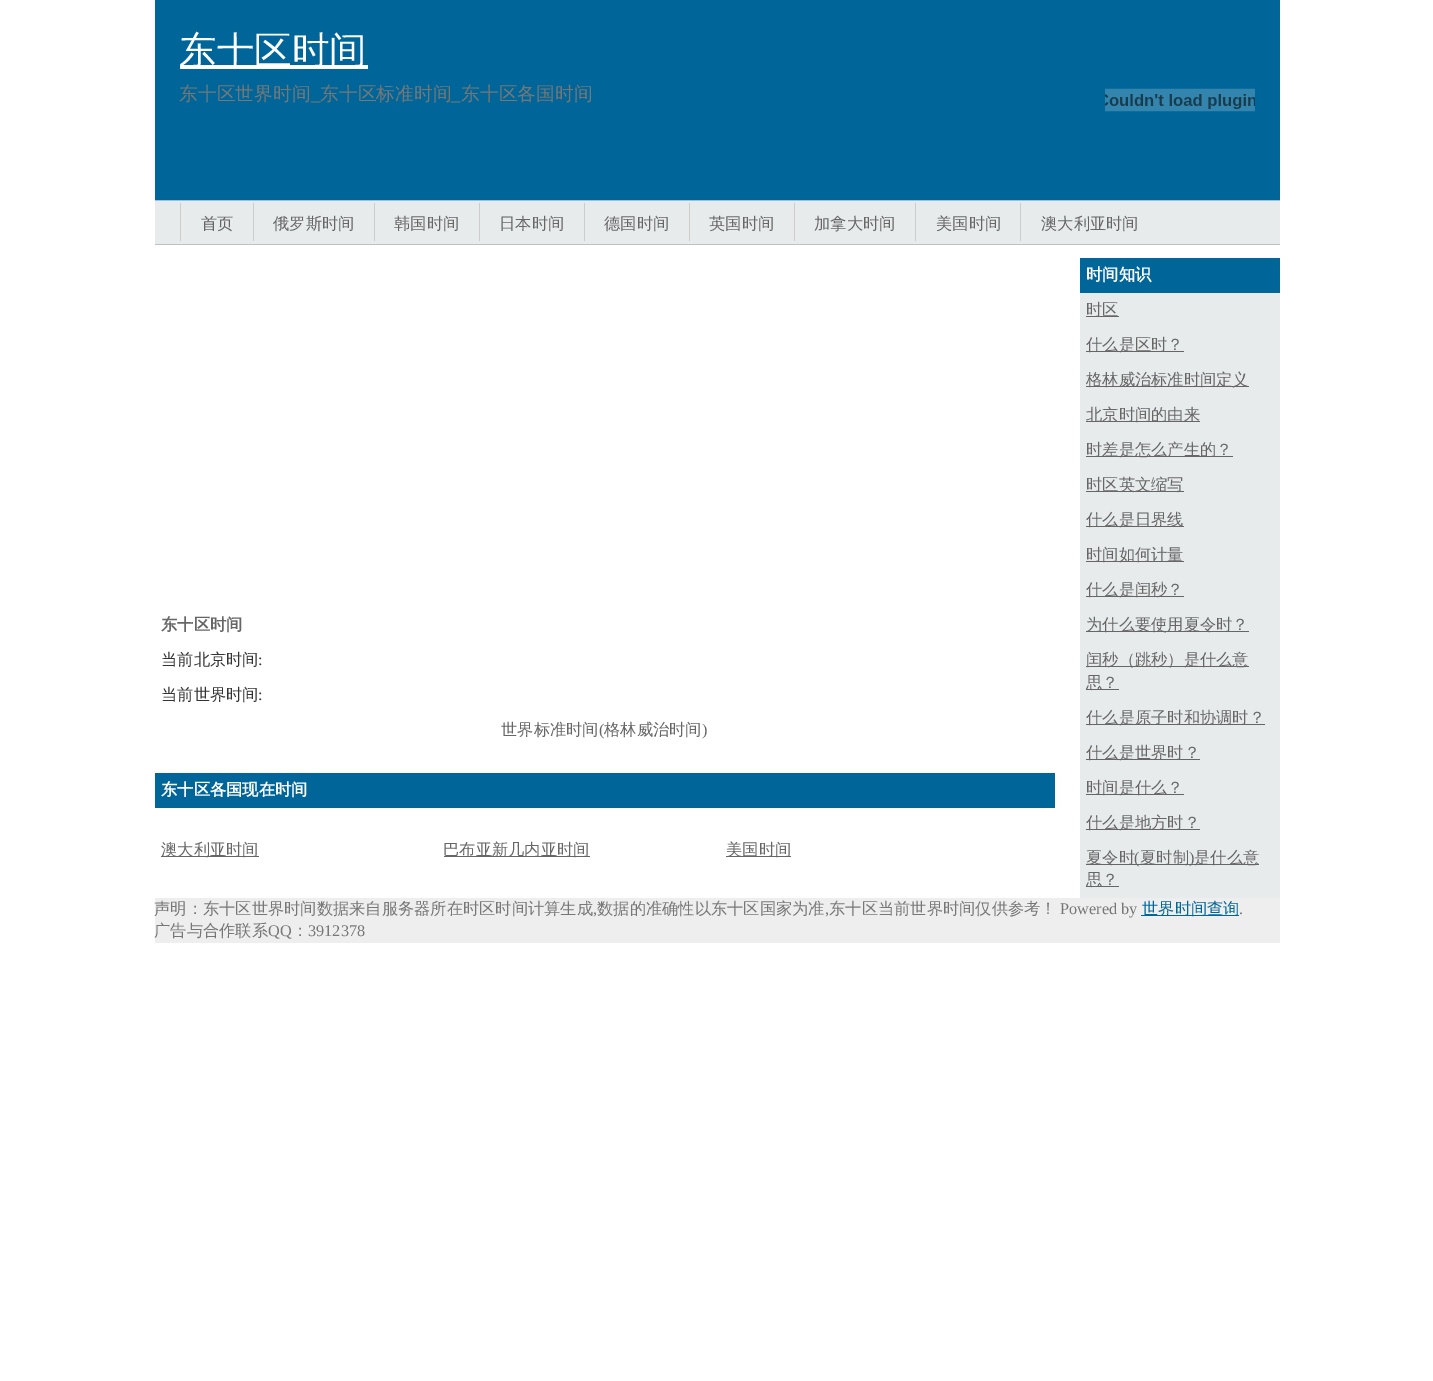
%!PS-Adobe-3.0
%%BoundingBox: 0 0 1433 1381
%%LanguageLevel: 3
%%Pages: 1
%%EndComments
%%BeginProlog
/fn { [ exch dup neg 0 0 3 -1 roll 0 0 ] selectfont } def
/tx { moveto show } def
/bx { rectfill } def
/im { 5 dict begin { /h /w /y /x /name } { exch def } forall
  gsave x y translate w h scale
  w h 8 [w 0 0 h 0 0] name (r) file false 3 colorimage grestore end } def
%%EndProlog
%%BeginSetup
<< /PageSize [1433 1381] >> setpagedevice
%%EndSetup
%%Page: 1 1
0 1381 translate 1 -1 scale
4 setmiterlimit
1 setgray
0 0 1433 1381 bx
0 0.4 0.6 setrgbcolor
155 0 1125 200 bx
0.569 0.761 0.929 setrgbcolor
155 200 1125 1 bx
1 setgray
180 65 188 4 bx
/WenQuanYiZenHei-Medium 37.5 fn
(东十区时间) 179 63 tx
/WenQuanYiZenHei-Medium 18.75 fn
0.467 setgray
(东十区世界时间) 179 100 tx
/LiberationSerif-Regular 18.75 fn
(_) 311 100 tx
/WenQuanYiZenHei-Medium 18.75 fn
(东十区标准时间) 320 100 tx
/LiberationSerif-Regular 18.75 fn
(_) 451 100 tx
/WenQuanYiZenHei-Medium 18.75 fn
(东十区各国时间) 461 100 tx
(image0.raw) 1105 88 150 24 im
0.91 0.922 0.925 setrgbcolor
155 201 1125 43 bx
0.729 0.761 0.776 setrgbcolor
155 244 1125 1 bx
0.8 setgray
180 203 1 38 bx
/WenQuanYiZenHei-Medium 16.25 fn
0.4 setgray
(首页) 201 229 tx
0.8 setgray
253 203 1 38 bx
0.4 setgray
(俄罗斯时间) 273 229 tx
0.8 setgray
374 203 1 38 bx
0.4 setgray
(韩国时间) 394 229 tx
0.8 setgray
479 203 1 38 bx
0.4 setgray
(日本时间) 499 229 tx
0.8 setgray
584 203 1 38 bx
0.4 setgray
(德国时间) 604 229 tx
0.8 setgray
689 203 1 38 bx
0.4 setgray
(英国时间) 709 229 tx
0.8 setgray
794 203 1 38 bx
0.4 setgray
(加拿大时间) 814 229 tx
0.8 setgray
915 203 1 38 bx
0.4 setgray
(美国时间) 936 229 tx
0.8 setgray
1020 203 1 38 bx
0.4 setgray
(澳大利亚时间) 1041 229 tx
/WenQuanYiZenHei-Bold 16.25 fn
(东十区时间) 161 630 tx
/WenQuanYiZenHei-Medium 16.25 fn
0.2 setgray
(当前北京时间) 161 665 tx
/LiberationSerif-Regular 16.25 fn
(:) 258 665 tx
/WenQuanYiZenHei-Medium 16.25 fn
(当前世界时间) 161 700 tx
/LiberationSerif-Regular 16.25 fn
(:) 258 700 tx
/WenQuanYiZenHei-Medium 16.25 fn
0.4 setgray
(世界标准时间) 501 735 tx
/LiberationSerif-Regular 16.25 fn
(\() 599 735 tx
/WenQuanYiZenHei-Medium 16.25 fn
(格林威治时间) 604 735 tx
/LiberationSerif-Regular 16.25 fn
(\)) 702 735 tx
0 0.4 0.6 setrgbcolor
155 773 900 35 bx
/WenQuanYiZenHei-Bold 16.25 fn
1 setgray
(东十区各国现在时间) 161 795 tx
0.4 setgray
161 856 98 1 bx
/WenQuanYiZenHei-Medium 16.25 fn
(澳大利亚时间) 161 855 tx
444 856 146 1 bx
(巴布亚新几内亚时间) 443 855 tx
726 856 65 1 bx
(美国时间) 726 855 tx
0.91 0.922 0.925 setrgbcolor
1080 293 200 605 bx
0 0.4 0.6 setrgbcolor
1080 258 200 35 bx
/WenQuanYiZenHei-Bold 16.25 fn
1 setgray
(时间知识) 1086 280 tx
0.4 setgray
1086 316 33 1 bx
/WenQuanYiZenHei-Medium 16.25 fn
(时区) 1086 315 tx
1086 351 98 1 bx
(什么是区时？) 1086 350 tx
1086 386 163 1 bx
(格林威治标准时间定义) 1086 385 tx
1086 421 114 1 bx
(北京时间的由来) 1086 420 tx
1086 456 147 1 bx
(时差是怎么产生的？) 1086 455 tx
1086 491 98 1 bx
(时区英文缩写) 1086 490 tx
1086 526 98 1 bx
(什么是日界线) 1086 525 tx
1086 561 98 1 bx
(时间如何计量) 1086 560 tx
1086 596 98 1 bx
(什么是闰秒？) 1086 595 tx
1086 631 163 1 bx
(为什么要使用夏令时？) 1086 630 tx
1086 666 163 1 bx
(闰秒（跳秒）是什么意) 1086 665 tx
1086 689 33 1 bx
(思？) 1086 688 tx
1086 724 179 1 bx
(什么是原子时和协调时？) 1086 723 tx
1086 759 114 1 bx
(什么是世界时？) 1086 758 tx
1086 794 98 1 bx
(时间是什么？) 1086 793 tx
1086 829 114 1 bx
(什么是地方时？) 1086 828 tx
1086 864 173 1 bx
(夏令时) 1086 863 tx
/LiberationSerif-Regular 16.25 fn
(\() 1134 863 tx
/WenQuanYiZenHei-Medium 16.25 fn
(夏时制) 1140 863 tx
/LiberationSerif-Regular 16.25 fn
(\)) 1189 863 tx
/WenQuanYiZenHei-Medium 16.25 fn
(是什么意) 1194 863 tx
1086 886 33 1 bx
(思？) 1086 885 tx
0.933 setgray
155 898 1125 45 bx
0.467 setgray
(声明：东十区世界时间数据来自服务器所在时区时间计算生成) 154 914 tx
/LiberationSerif-Regular 16.25 fn
(,) 593 914 tx
/WenQuanYiZenHei-Medium 16.25 fn
(数据的准确性以东十区国家为准) 597 914 tx
/LiberationSerif-Regular 16.25 fn
(,) 825 914 tx
/WenQuanYiZenHei-Medium 16.25 fn
(东十区当前世界时间仅供参考！) 829 914 tx
/LiberationSerif-Regular 16.25 fn
(Powered by) 1060 914 tx
0 0.4 0.6 setrgbcolor
1141 915 98 1 bx
/WenQuanYiZenHei-Medium 16.25 fn
(世界时间查询) 1142 914 tx
/LiberationSerif-Regular 16.25 fn
0.467 setgray
(.) 1239 914 tx
/WenQuanYiZenHei-Medium 16.25 fn
(广告与合作联系) 154 936 tx
/LiberationSerif-Regular 16.25 fn
(QQ) 268 936 tx
/WenQuanYiZenHei-Medium 16.25 fn
(：) 292 936 tx
/LiberationSerif-Regular 16.25 fn
(3912378) 308 936 tx
showpage
%%EOF
